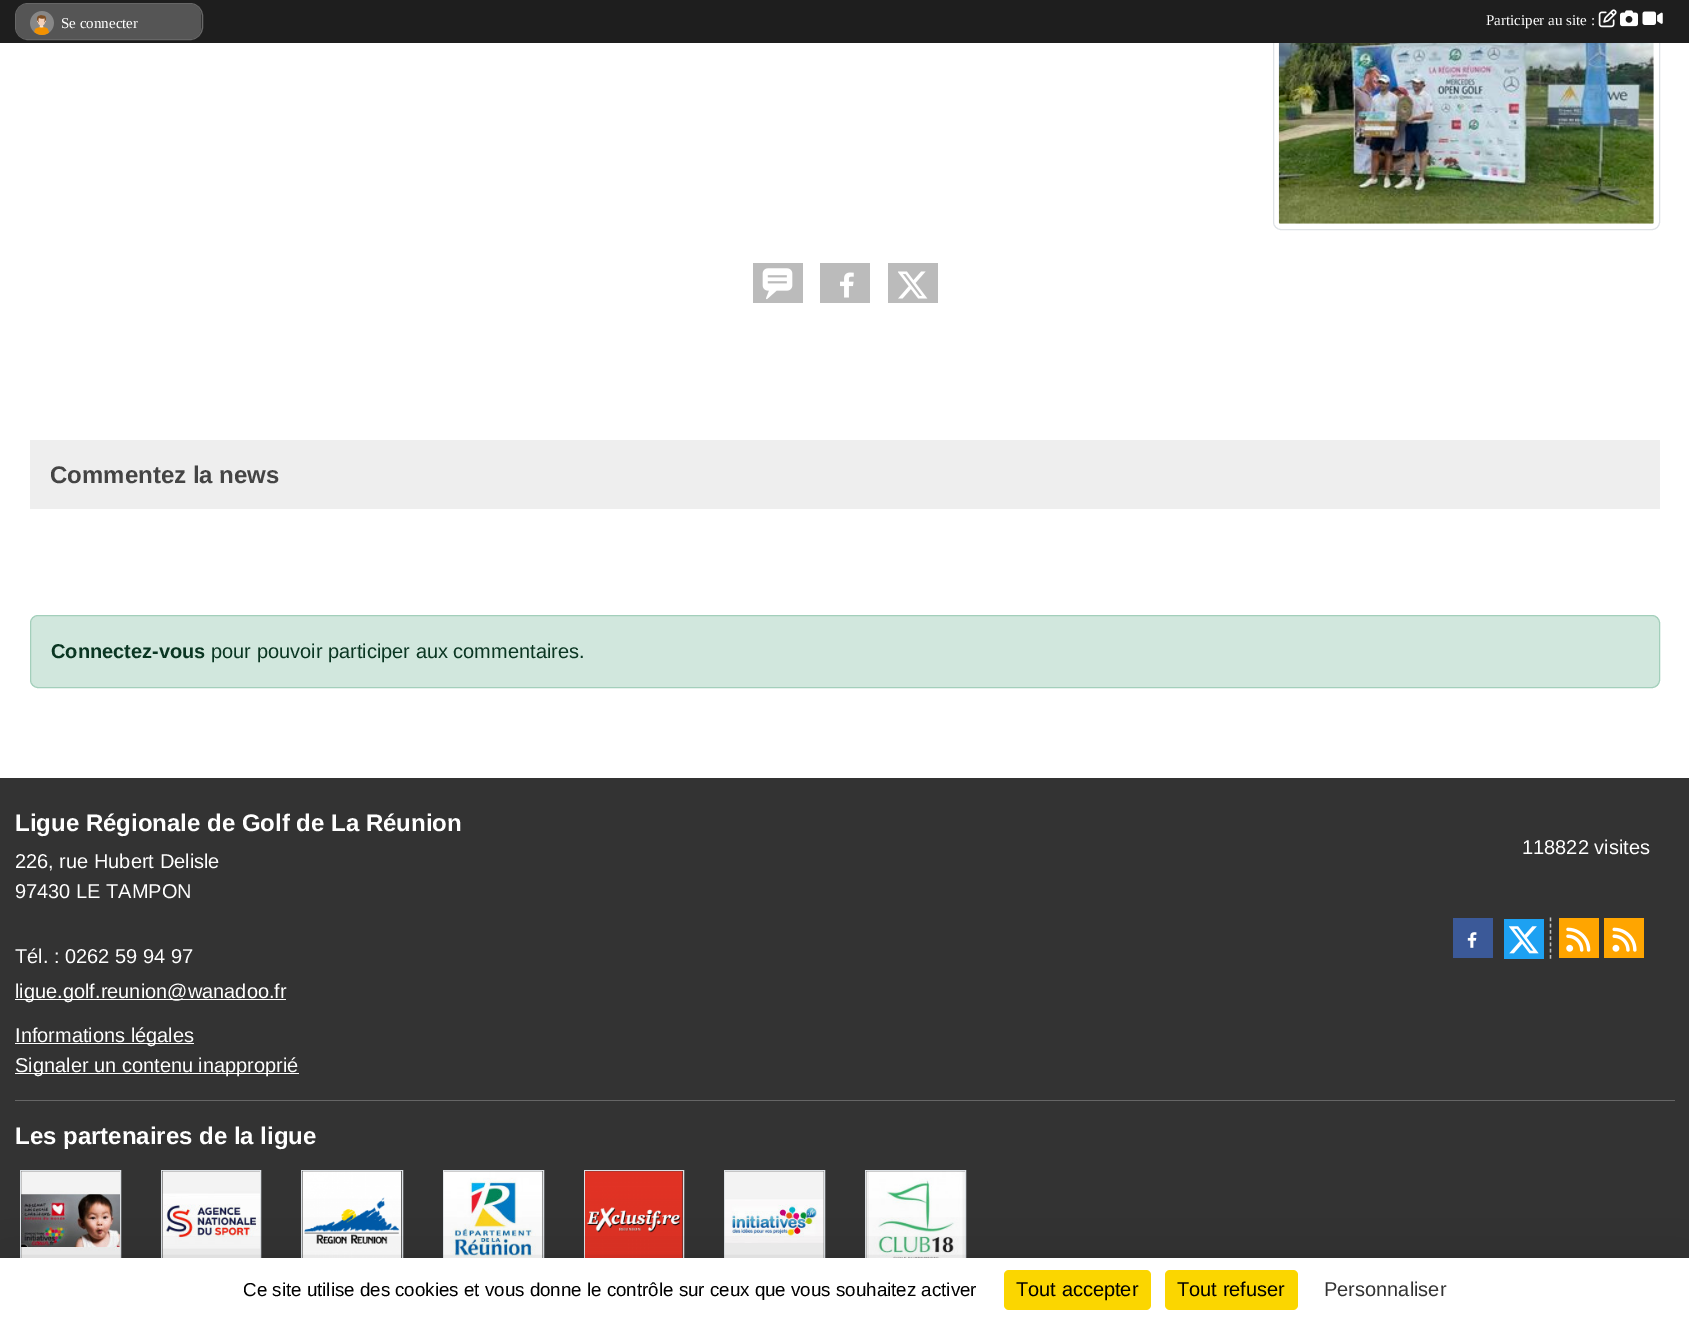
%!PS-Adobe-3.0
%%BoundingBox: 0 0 1689 1322
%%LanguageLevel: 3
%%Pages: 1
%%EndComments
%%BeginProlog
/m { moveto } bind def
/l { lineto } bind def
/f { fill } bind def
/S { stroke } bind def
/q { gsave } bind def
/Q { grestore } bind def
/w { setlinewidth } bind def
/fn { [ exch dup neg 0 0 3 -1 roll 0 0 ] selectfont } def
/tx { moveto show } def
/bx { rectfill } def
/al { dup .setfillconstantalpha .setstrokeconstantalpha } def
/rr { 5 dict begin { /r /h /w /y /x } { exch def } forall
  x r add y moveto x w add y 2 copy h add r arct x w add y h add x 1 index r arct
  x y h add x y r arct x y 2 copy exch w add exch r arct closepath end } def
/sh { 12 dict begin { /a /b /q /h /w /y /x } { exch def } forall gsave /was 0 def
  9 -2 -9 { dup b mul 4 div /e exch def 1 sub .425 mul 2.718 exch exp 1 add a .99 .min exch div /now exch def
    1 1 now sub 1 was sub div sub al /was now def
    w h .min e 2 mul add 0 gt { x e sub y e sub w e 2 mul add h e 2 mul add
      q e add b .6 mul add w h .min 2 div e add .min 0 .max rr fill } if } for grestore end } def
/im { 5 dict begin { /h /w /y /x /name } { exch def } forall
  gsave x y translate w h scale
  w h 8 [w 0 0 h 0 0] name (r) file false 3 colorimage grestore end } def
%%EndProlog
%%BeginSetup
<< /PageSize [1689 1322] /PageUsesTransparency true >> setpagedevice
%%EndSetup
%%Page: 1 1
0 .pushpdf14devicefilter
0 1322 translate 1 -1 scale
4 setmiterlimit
1 setgray
0 0 1689 1322 bx
0.871 0.886 0.902 setrgbcolor
1273.5 -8.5 386 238 7.5 rr S
0.118 setgray
0 0 1689 43 bx
0.2 setgray
15.5 3.5 187 36 12.5 rr q f Q
0.4 setgray
S
0.333 setgray
16 4 185 35 11 rr f
(image0.raw) 30 11 24 24 im
/LiberationSerif-Regular 15 fn
1 setgray
(Se connecter) 61 28 tx
(Participer au site :) 1486 25 tx
(image1.raw) 1598 9 19 19 im
(image2.raw) 1620 10 18 17 im
(image3.raw) 1642 11 21 14 im
(image4.raw) 1278 43 376 181 im
0.733 setgray
753 263 50 40 bx
(image5.raw) 762 268 31 32 im
820 263 50 40 bx
(image6.raw) 840 272 14 26 im
888 263 50 40 bx
(image7.raw) 898 271 30 28 im
0.933 setgray
30 440 1630 69 bx
/LiberationSans-Bold 24 fn
0.267 setgray
(Commentez la news) 50 483 tx
0.82 0.906 0.867 setrgbcolor
30.5 615.5 1629 72 7.5 rr q f Q
0.639 0.812 0.733 setrgbcolor
S
/LiberationSans-Bold 20 fn
0.039 0.212 0.133 setrgbcolor
(Connectez-vous) 51 658 tx
/LiberationSans-Regular 20 fn
(pour pouvoir participer aux commentaires.) 211 658 tx
0.2 setgray
0 778 1689 480 bx
/LiberationSans-Bold 24 fn
1 setgray
(Ligue Régionale de Golf de La Réunion) 15 831 tx
/LiberationSans-Regular 20 fn
(226, rue Hubert Delisle) 15 868 tx
(97430 LE TAMPON) 15 898 tx
(Tél. : 0262 59 94 97) 15 963 tx
15 999 271 1 bx
(ligue.golf.reunion@wanadoo.fr) 15 998 tx
15 1043 179 1 bx
(Informations légales) 15 1042 tx
15 1073 284 1 bx
(Signaler un contenu inapproprié) 15 1072 tx
(118822 visites) 1522 854 tx
0.231 0.349 0.596 setrgbcolor
1453 918 40 40 bx
(image8.raw) 1467 932 10 16 im
0.114 0.631 0.949 setrgbcolor
1504 919 40 40 bx
(image9.raw) 1509 926 30 28 im
0.753 setgray
1.2 w
[3.75 2.5] 0 setdash
1550.5 917.5 m 1550.5 959 l S
1 0.647 0 setrgbcolor
1559 918 40 40 bx
(image10.raw) 1566 927 25 25 im
1604 918 40 40 bx
(image11.raw) 1612 927 25 25 im
0.4 setgray
15 1100 1660 1 bx
/LiberationSans-Bold 24 fn
1 setgray
(Les partenaires de la ligue) 15 1144 tx
0.871 0.886 0.902 setrgbcolor
1 w
[] 0 setdash
20.5 1170.5 100 100 rectstroke
(image12.raw) 21 1171 99 87 im
161.5 1170.5 99 100 rectstroke
(image13.raw) 162 1171 98 87 im
301.5 1170.5 101 100 rectstroke
(image14.raw) 302 1171 100 87 im
443.5 1170.5 100 100 rectstroke
(image15.raw) 443 1171 100 87 im
584.5 1170.5 99 100 rectstroke
(image16.raw) 585 1171 98 87 im
724.5 1170.5 100 100 rectstroke
(image17.raw) 725 1171 99 87 im
865.5 1170.5 100 100 rectstroke
(image18.raw) 866 1171 99 87 im
0 setgray
0 1283 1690 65 0 37.5 0.25 sh
1 setgray
0 1258 1689 64 bx
/LiberationSans-Regular 18.75 fn
0 setgray
(Ce site utilise des cookies et vous donne le contrôle sur ceux que vous souhaitez activer) 243 1296 tx
0.984 0.839 0 setrgbcolor
1004 1270 147 40 5 rr f
/LiberationSans-Regular 20 fn
0 setgray
(Tout accepter) 1016 1296 tx
0.984 0.839 0 setrgbcolor
1165 1270 133 40 5 rr f
0 setgray
(Tout refuser) 1177 1296 tx
0.2 setgray
(Personnaliser) 1324 1296 tx
.poppdf14devicefilter showpage
%%EOF
